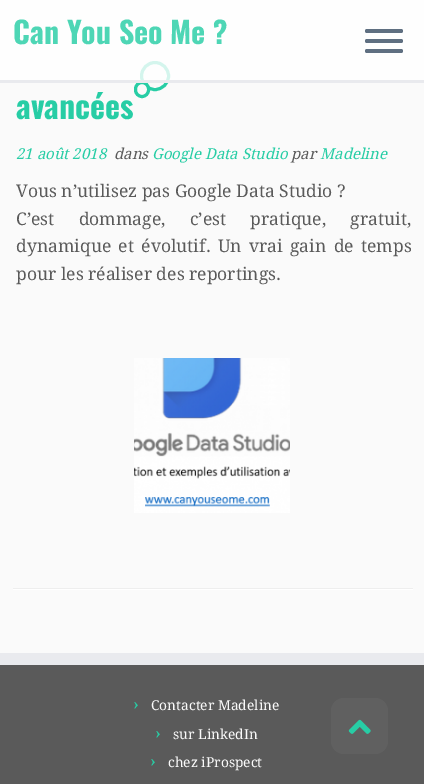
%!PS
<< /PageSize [424 784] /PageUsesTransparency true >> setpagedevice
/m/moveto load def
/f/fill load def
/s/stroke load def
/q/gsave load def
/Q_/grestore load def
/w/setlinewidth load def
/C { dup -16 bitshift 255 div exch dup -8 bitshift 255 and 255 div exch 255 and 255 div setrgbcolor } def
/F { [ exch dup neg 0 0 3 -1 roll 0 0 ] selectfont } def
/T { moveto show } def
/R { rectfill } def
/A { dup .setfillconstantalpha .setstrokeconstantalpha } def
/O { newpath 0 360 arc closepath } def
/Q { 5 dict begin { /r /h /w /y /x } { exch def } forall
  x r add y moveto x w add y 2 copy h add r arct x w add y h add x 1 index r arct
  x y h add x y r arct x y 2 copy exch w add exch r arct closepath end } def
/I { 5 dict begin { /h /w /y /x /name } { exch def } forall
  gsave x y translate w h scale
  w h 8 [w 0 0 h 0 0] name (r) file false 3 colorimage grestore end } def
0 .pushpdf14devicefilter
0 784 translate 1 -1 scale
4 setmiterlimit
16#FAFAFA C
0 0 424 784 R
16#27CDA5 C
3 w
155 76 13.5 O s
0.8 A
16#FFFFFF C
0 0 424 80 R
1 A
16#FAFAFA C
135.5 82.5 13 14 6.5 Q q f Q_
16#27CDA5 C
s
16#E9EAEE C
0 80 424 3 R
/Oswald-Bold 30 F
16#4ED6B5 C
(Can You Seo Me ?) 13 44 T
16#5F6F81 C
365 29 38 4 2 Q f
365 39 38 4 2 Q f
365 49 38 4 2 Q f
/Oswald-Bold 32 F
16#27CDA5 C
(avancées) 16 119 T
/DroidSerif-Italic 15 F
(21 août 2018) 16 159 T
16#5A5A5A C
(dans) 114 159 T
16#27CDA5 C
(Google Data Studio) 152 159 T
16#5A5A5A C
(par) 291 159 T
16#27CDA5 C
(Madeline) 320 159 T
/DroidSerif-Regular 17.5 F
16#5A5A5A C
(Vous n’utilisez pas Google Data Studio ?) 16 197 T
16 225 m 19.5 0 32 (C’est dommage, c’est pratique, gratuit,) widthshow
16 252 m 2.75 0 32 (dynamique et évolutif. Un vrai gain de temps) widthshow
(pour les réaliser des reportings.) 16 280 T
(1.rgb) 134 358 156 155 I
16#EEEEEE C
13 588 400 1 R
16#FFFFFF C
13 589 400 1 R
16#5A5A5A C
0 665 424 119 R
16#E9EAEE C
0 653 424 12 R
16#27CDA5 C
(›) 133 710 T
/DroidSerif-Regular 13.75 F
16#FAFAFA C
(Contacter Madeline) 151 710 T
/DroidSerif-Regular 17.5 F
16#27CDA5 C
(›) 155 739 T
/DroidSerif-Regular 13.75 F
16#FAFAFA C
(sur LinkedIn) 173 739 T
/DroidSerif-Regular 17.5 F
16#27CDA5 C
(›) 150 767 T
/DroidSerif-Regular 13.75 F
16#FAFAFA C
(chez iProspect) 168 767 T
16#606060 C
331 698 57 56 13 Q f
(2.rgb) 348 719 23 15 I
.poppdf14devicefilter showpage
